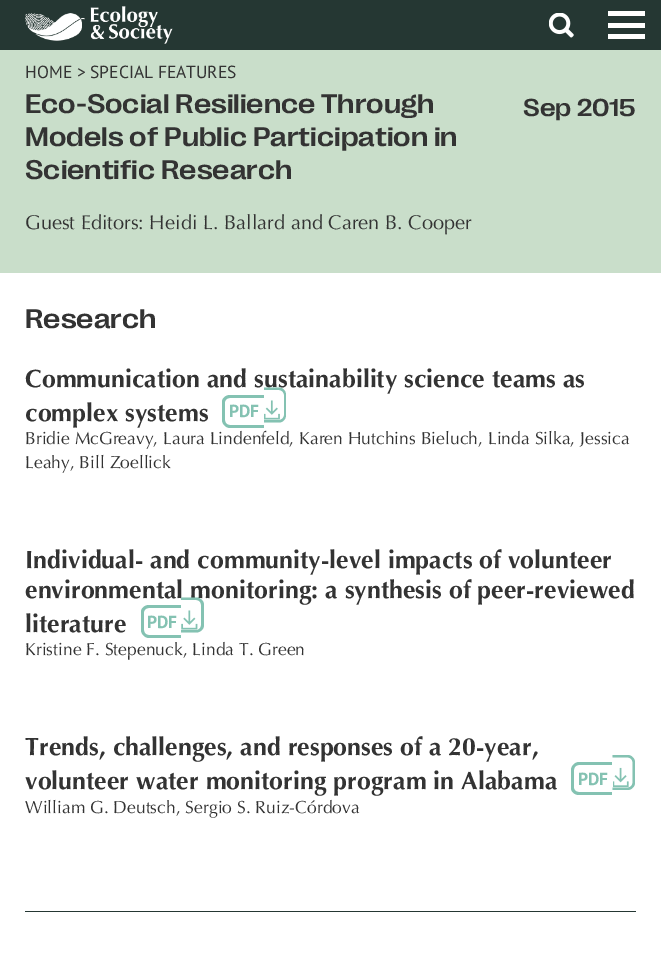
%!PS
<< /PageSize [661 960] >> setpagedevice
/m/moveto load def
/l/rlineto load def
/c/rcurveto load def
/z/closepath load def
/C { dup -16 bitshift 255 div exch dup -8 bitshift 255 and 255 div exch 255 and 255 div setrgbcolor } def
/F { [ exch dup neg 0 0 3 -1 roll 0 0 ] selectfont } def
/T { moveto show } def
/R { rectfill } def
/I { 5 dict begin { /h /w /y /x /name } { exch def } forall
  gsave x y translate w h scale
  w h 8 [w 0 0 h 0 0] name (r) file false 3 colorimage grestore end } def
0 960 translate 1 -1 scale
4 setmiterlimit
16#FFFFFF C
0 0 661 960 R
16#253733 C
0 0 661 50 R
(1.rgb) 25 6 148 38 I
(2.rgb) 549 13 25 25 I
16#FFFFFF C
608 11 37 5 R
608 23 37 5 R
608 34 37 5 R
16#C9DECA C
0 50 661 223 R
/PTSans-Regular 17.5 F
16#333333 C
(HOME > SPECIAL FEATURES) 25 78 T
/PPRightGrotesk-Medium 27.5 F
(Eco-Social Resilience Through) 25 113 T
(Models of Public Participation in) 25 146 T
(Scientific Research) 25 179 T
/PPRightGrotesk-Medium 25 F
(Sep 2015) 523 116 T
/Optima-Regular 20 F
(Guest Editors: Heidi L. Ballard and Caren B. Cooper) 25 229 T
/PPRightGrotesk-Medium 27.5 F
(Research) 25 328 T
16#253733 C
25 911 611 1 R
/Optima-Bold 25 F
16#333333 C
(Communication and sustainability science teams as) 25 387 T
(complex systems) 25 421 T
16#84C2B2 C
230 395 m 34 0 l 0 33 l -34 0 l -4 0 -8 -4 -8 -8 c 0 -18 l 0 -4 4 -7 8 -7 c z 230 398 m 34 0 l 0 27 l -34 0 l -3 0 -5 -2 -5 -5 c 0 -18 l 0 -2 2 -4 5 -4 c z eofill
/PTSans-Bold 17.5 F
(PDF) 229 417 T
264 387.5 m 15 0 l 4 0 7 3.5 7 7.5 c 0 20 l 0 4 -3 7.5 -7 7.5 c -15 0 l z 264 390 m 15 0 l 2.5 0 5 2 5 5 c 0 20 l 0 3 -2.5 5 -5 5 c -15 0 l z eofill
(3.rgb) 264 400 16 20 I
/Optima-Regular 17.5 F
16#333333 C
(Bridie McGreavy, Laura Lindenfeld, Karen Hutchins Bieluch, Linda Silka, Jessica) 25 444 T
(Leahy, Bill Zoellick) 25 468 T
/Optima-Bold 25 F
(Individual- and community-level impacts of volunteer) 25 568 T
(environmental monitoring: a synthesis of peer-reviewed) 25 598 T
(literature) 25 632 T
16#84C2B2 C
149 605 m 32 0 l 0 33 l -32 0 l -4 0 -8 -4 -8 -8 c 0 -18 l 0 -4 4 -7 8 -7 c z 149 608 m 32 0 l 0 27 l -32 0 l -3 0 -5 -2 -5 -5 c 0 -18 l 0 -2 2 -4 5 -4 c z 181 597.5 m 15 0 l 4.5 0 8 3.5 8 7.5 c 0 20 l 0 4 -3.5 7.5 -8 7.5 c -15 0 l z 181 600 m 15 0 l 3 0 5 2 5 5 c 0 20 l 0 3 -2 5 -5 5 c -15 0 l z eofill
/PTSans-Bold 17.5 F
(PDF) 147 628 T
(4.rgb) 181 610 17 20 I
/Optima-Regular 17.5 F
16#333333 C
(Kristine F. Stepenuck, Linda T. Green) 25 655 T
/Optima-Bold 25 F
(Trends, challenges, and responses of a 20-year,) 25 755 T
(volunteer water monitoring program in Alabama) 25 789 T
16#84C2B2 C
579 762 m 33 0 l 0 33 l -33 0 l -4 0 -8 -3 -8 -7 c 0 -18 l 0 -4 4 -8 8 -8 c z 579 765 m 33 0 l 0 27 l -33 0 l -3 0 -5 -2 -5 -4 c 0 -18 l 0 -3 2 -5 5 -5 c z eofill
/PTSans-Bold 17.5 F
(PDF) 578 785 T
612.5 755 m 15 0 l 4 0 7.5 3.5 7.5 7.5 c 0 20 l 0 4 -3.5 7.5 -7.5 7.5 c -15 0 l z 612.5 757.5 m 15 0 l 3 0 5 2 5 5 c 0 20 l 0 3 -2 5 -5 5 c -15 0 l z eofill
(5.rgb) 613 767 16 20 I
/Optima-Regular 17.5 F
16#333333 C
(William G. Deutsch, Sergio S. Ruiz-Córdova) 25 813 T
showpage
